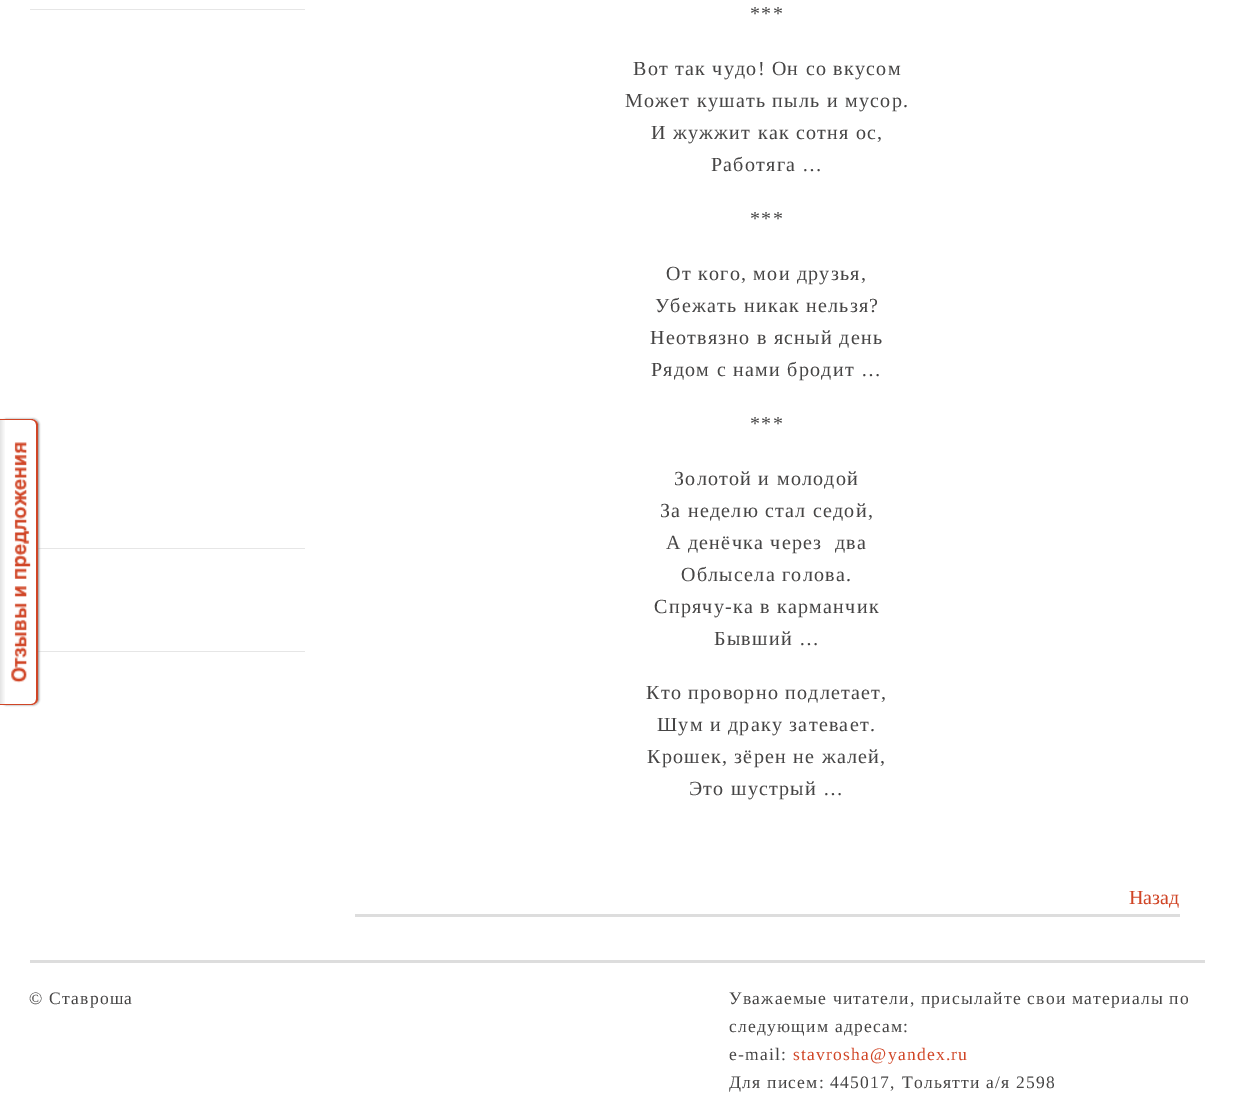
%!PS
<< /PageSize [1233 1119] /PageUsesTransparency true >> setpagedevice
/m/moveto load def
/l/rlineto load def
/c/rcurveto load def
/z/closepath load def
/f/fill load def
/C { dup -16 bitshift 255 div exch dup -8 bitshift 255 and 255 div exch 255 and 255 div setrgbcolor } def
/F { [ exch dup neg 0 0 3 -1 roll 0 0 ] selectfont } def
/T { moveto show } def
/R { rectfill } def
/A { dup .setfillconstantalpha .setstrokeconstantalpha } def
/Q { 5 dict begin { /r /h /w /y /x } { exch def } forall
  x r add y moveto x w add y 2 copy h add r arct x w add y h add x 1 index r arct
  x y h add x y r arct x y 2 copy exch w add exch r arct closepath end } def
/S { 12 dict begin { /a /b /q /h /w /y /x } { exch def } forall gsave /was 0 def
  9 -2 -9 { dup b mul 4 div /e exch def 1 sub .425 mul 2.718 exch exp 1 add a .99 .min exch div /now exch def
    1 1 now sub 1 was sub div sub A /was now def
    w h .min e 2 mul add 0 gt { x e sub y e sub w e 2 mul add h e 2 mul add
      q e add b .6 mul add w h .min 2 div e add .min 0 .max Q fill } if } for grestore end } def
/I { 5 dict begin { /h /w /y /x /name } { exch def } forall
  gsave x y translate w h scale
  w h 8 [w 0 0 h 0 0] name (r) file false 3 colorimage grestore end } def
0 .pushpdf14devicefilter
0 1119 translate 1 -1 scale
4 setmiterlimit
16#FFFFFF C
0 0 1233 1119 R
16#E6E6E6 C
30 548 275 1 R
30 651 275 1 R
16#888888 C
1 419 38 286 6 1 1 S
16#FFFFFF C
0 419 m 32 0 l 3.5 0 6 2.5 6 6 c 0 274 l 0 3.5 -2.5 6 -6 6 c -32 0 l z f
(1.rgb) 0 418 5 286 I
16#D04526 C
0 419 m 31 0 l 4 0 7 3 7 6 c 0 274 l 0 3 -3 6 -7 6 c -31 0 l z 0 420 m 31 0 l 3 0 5 2 5 5 c 0 274 l 0 3 -2 5 -5 5 c -31 0 l z eofill
(2.rgb) 11 442 20 241 I
16#E6E6E6 C
30 9 275 1 R
/LiberationSerif-Regular 20 F
16#464545 C
750 20 m 1.25 0 (***) ashow
633 75 m 1.25 0 (Вот так чудо! Он со вкусом) ashow
625 107 m 1.25 0 (Может кушать пыль и мусор.) ashow
651 139 m 1.25 0 (И жужжит как сотня ос,) ashow
711 171 m 1.25 0 (Работяга …) ashow
750 225 m 1.25 0 (***) ashow
666 280 m 1.25 0 (От кого, мои друзья,) ashow
655 312 m 1.25 0 (Убежать никак нельзя?) ashow
650 344 m 1.25 0 (Неотвязно в ясный день) ashow
651 376 m 1.25 0 (Рядом с нами бродит …) ashow
750 430 m 1.25 0 (***) ashow
674 485 m 1.25 0 (Золотой и молодой) ashow
660 517 m 1.25 0 (За неделю стал седой,) ashow
666 549 m 1.25 0 (А денёчка через  два) ashow
681 581 m 1.25 0 (Облысела голова.) ashow
654 613 m 1.25 0 (Спрячу-ка в карманчик) ashow
714 645 m 1.25 0 (Бывший …) ashow
646 699 m 1.25 0 (Кто проворно подлетает,) ashow
657 731 m 1.25 0 (Шум и драку затевает.) ashow
647 763 m 1.25 0 (Крошек, зёрен не жалей,) ashow
689 795 m 1.25 0 (Это шустрый …) ashow
16#D04526 C
(Назад) 1129 904 T
16#DDDDDD C
355 914 825 3 R
30 960 1175 3 R
/LiberationSerif-Regular 17.5 F
16#464545 C
29 1004 m 1.25 0 (© Ставроша) ashow
729 1004 m 1.25 0 (Уважаемые читатели, присылайте свои материалы по) ashow
729 1032 m 1.25 0 (следующим адресам:) ashow
729 1060 m 1.25 0 (e-mail:) ashow
16#D04526 C
793 1060 m 1.25 0 (stavrosha@yandex.ru) ashow
16#464545 C
729 1088 m 1.25 0 (Для писем: 445017, Тольятти а/я 2598) ashow
.poppdf14devicefilter showpage
